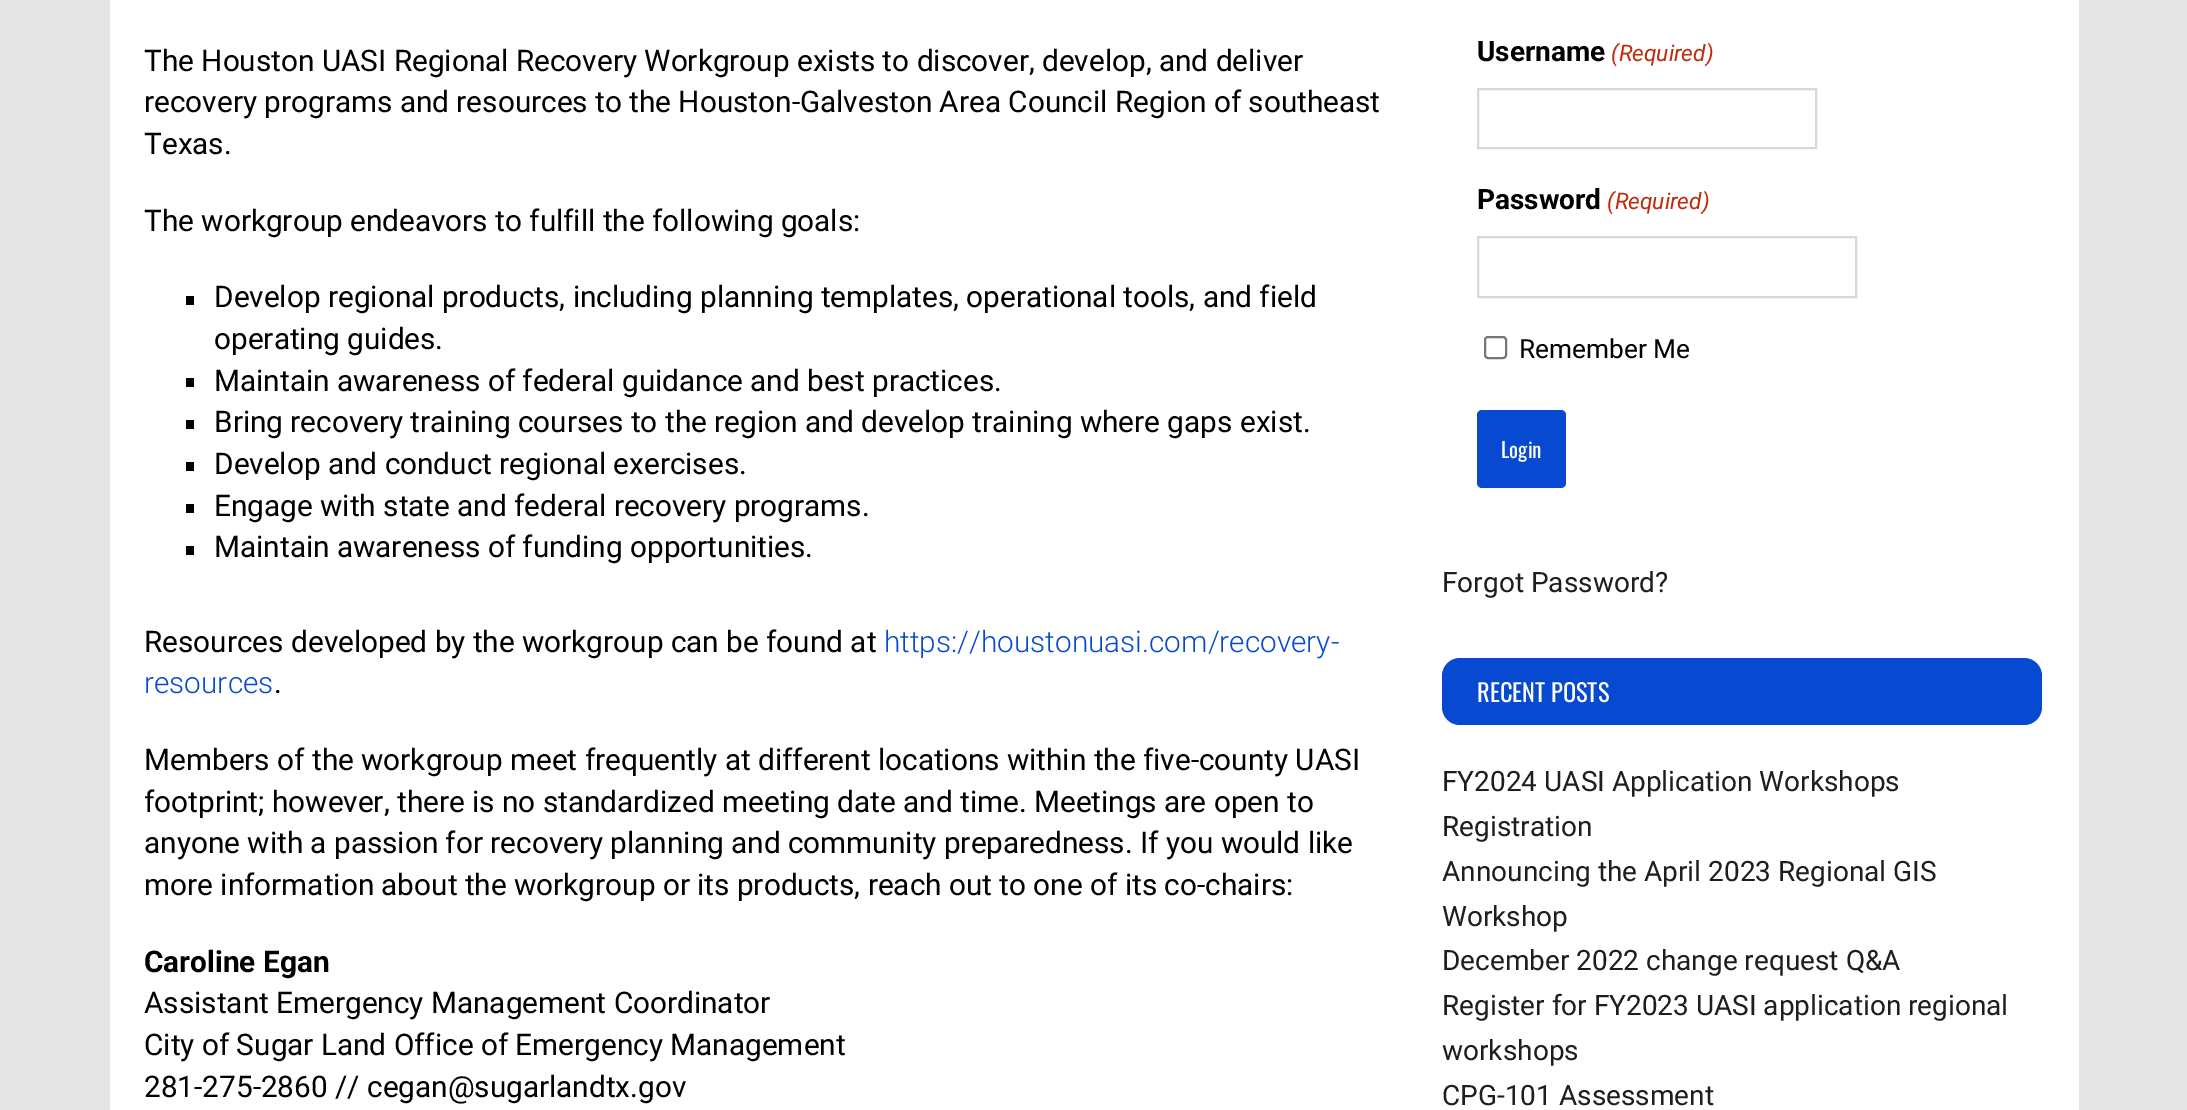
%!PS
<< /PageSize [2187 1110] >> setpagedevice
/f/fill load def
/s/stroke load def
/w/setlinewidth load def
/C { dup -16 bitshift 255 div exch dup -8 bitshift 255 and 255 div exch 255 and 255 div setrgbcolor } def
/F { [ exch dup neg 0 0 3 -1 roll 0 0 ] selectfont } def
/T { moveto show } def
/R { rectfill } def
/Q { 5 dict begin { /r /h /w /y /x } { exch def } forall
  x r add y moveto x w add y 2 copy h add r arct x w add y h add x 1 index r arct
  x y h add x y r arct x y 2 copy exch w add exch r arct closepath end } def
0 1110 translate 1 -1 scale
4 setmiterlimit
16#E5E5E5 C
0 0 2187 1110 R
16#FFFFFF C
110 0 1969 1110 R
/Roboto-Regular 29.75 F
16#000000 C
(The Houston UASI Regional Recovery Workgroup exists to discover, develop, and deliver) 144 71 T
(recovery programs and resources to the Houston-Galveston Area Council Region of southeast) 144 112 T
(Texas.) 144 154 T
(The workgroup endeavors to fulfill the following goals:) 144 231 T
186 296 8 9 R
(Develop regional products, including planning templates, operational tools, and field) 214 307 T
(operating guides.) 214 349 T
186 378 8 9 R
(Maintain awareness of federal guidance and best practices.) 214 391 T
186 420 8 9 R
(Bring recovery training courses to the region and develop training where gaps exist.) 214 432 T
186 462 8 9 R
(Develop and conduct regional exercises.) 214 474 T
186 504 8 9 R
(Engage with state and federal recovery programs.) 214 516 T
186 546 8 9 R
(Maintain awareness of funding opportunities.) 214 557 T
(Resources developed by the workgroup can be found at) 144 652 T
/Roboto-Light 29.75 F
16#0749D0 C
(https://houstonuasi.com/recovery-) 884 652 T
(resources) 144 693 T
/Roboto-Regular 29.75 F
16#000000 C
(.) 274 693 T
(Members of the workgroup meet frequently at different locations within the five-county UASI) 144 770 T
(footprint; however, there is no standardized meeting date and time. Meetings are open to) 144 812 T
(anyone with a passion for recovery planning and community preparedness. If you would like) 144 853 T
(more information about the workgroup or its products, reach out to one of its co-chairs:) 144 895 T
/Roboto-Bold 29.75 F
(Caroline Egan) 144 972 T
/Roboto-Regular 29.75 F
(Assistant Emergency Management Coordinator) 144 1013 T
(City of Sugar Land Office of Emergency Management) 144 1055 T
(281-275-2860 // cegan@sugarlandtx.gov) 144 1097 T
/Roboto-Bold 28 F
(Username) 1477 61 T
/Roboto-Italic 22.75 F
16#C02B0A C
(\(Required\)) 1611 61 T
16#D7D8D8 C
2 w
1478 89 338 59 rectstroke
/Roboto-Bold 28 F
16#000000 C
(Password) 1477 209 T
/Roboto-Italic 22.75 F
16#C02B0A C
(\(Required\)) 1607 209 T
16#D7D8D8 C
1478 237 378 60 rectstroke
16#767676 C
1485 337 21 21 3 Q s
/Roboto-Regular 26.25 F
16#000000 C
(Remember Me) 1519 358 T
16#0749D0 C
1477 410 89 78 5 Q f
/Oswald-Regular 21 F
16#FFFFFF C
(Login) 1501 458 T
/Roboto-Regular 28 F
16#1F1E1E C
(Forgot Password?) 1442 592 T
16#0749D0 C
1442 658 600 67 18 Q f
/Oswald-Regular 24.5 F
16#FFFFFF C
(RECENT POSTS) 1477 702 T
/Roboto-Regular 28 F
16#1F1E1E C
(FY2024 UASI Application Workshops) 1442 791 T
(Registration) 1442 836 T
(Announcing the April 2023 Regional GIS) 1442 881 T
(Workshop) 1442 926 T
(December 2022 change request Q&A) 1442 970 T
(Register for FY2023 UASI application regional) 1442 1015 T
(workshops) 1442 1060 T
(CPG-101 Assessment) 1442 1105 T
showpage
